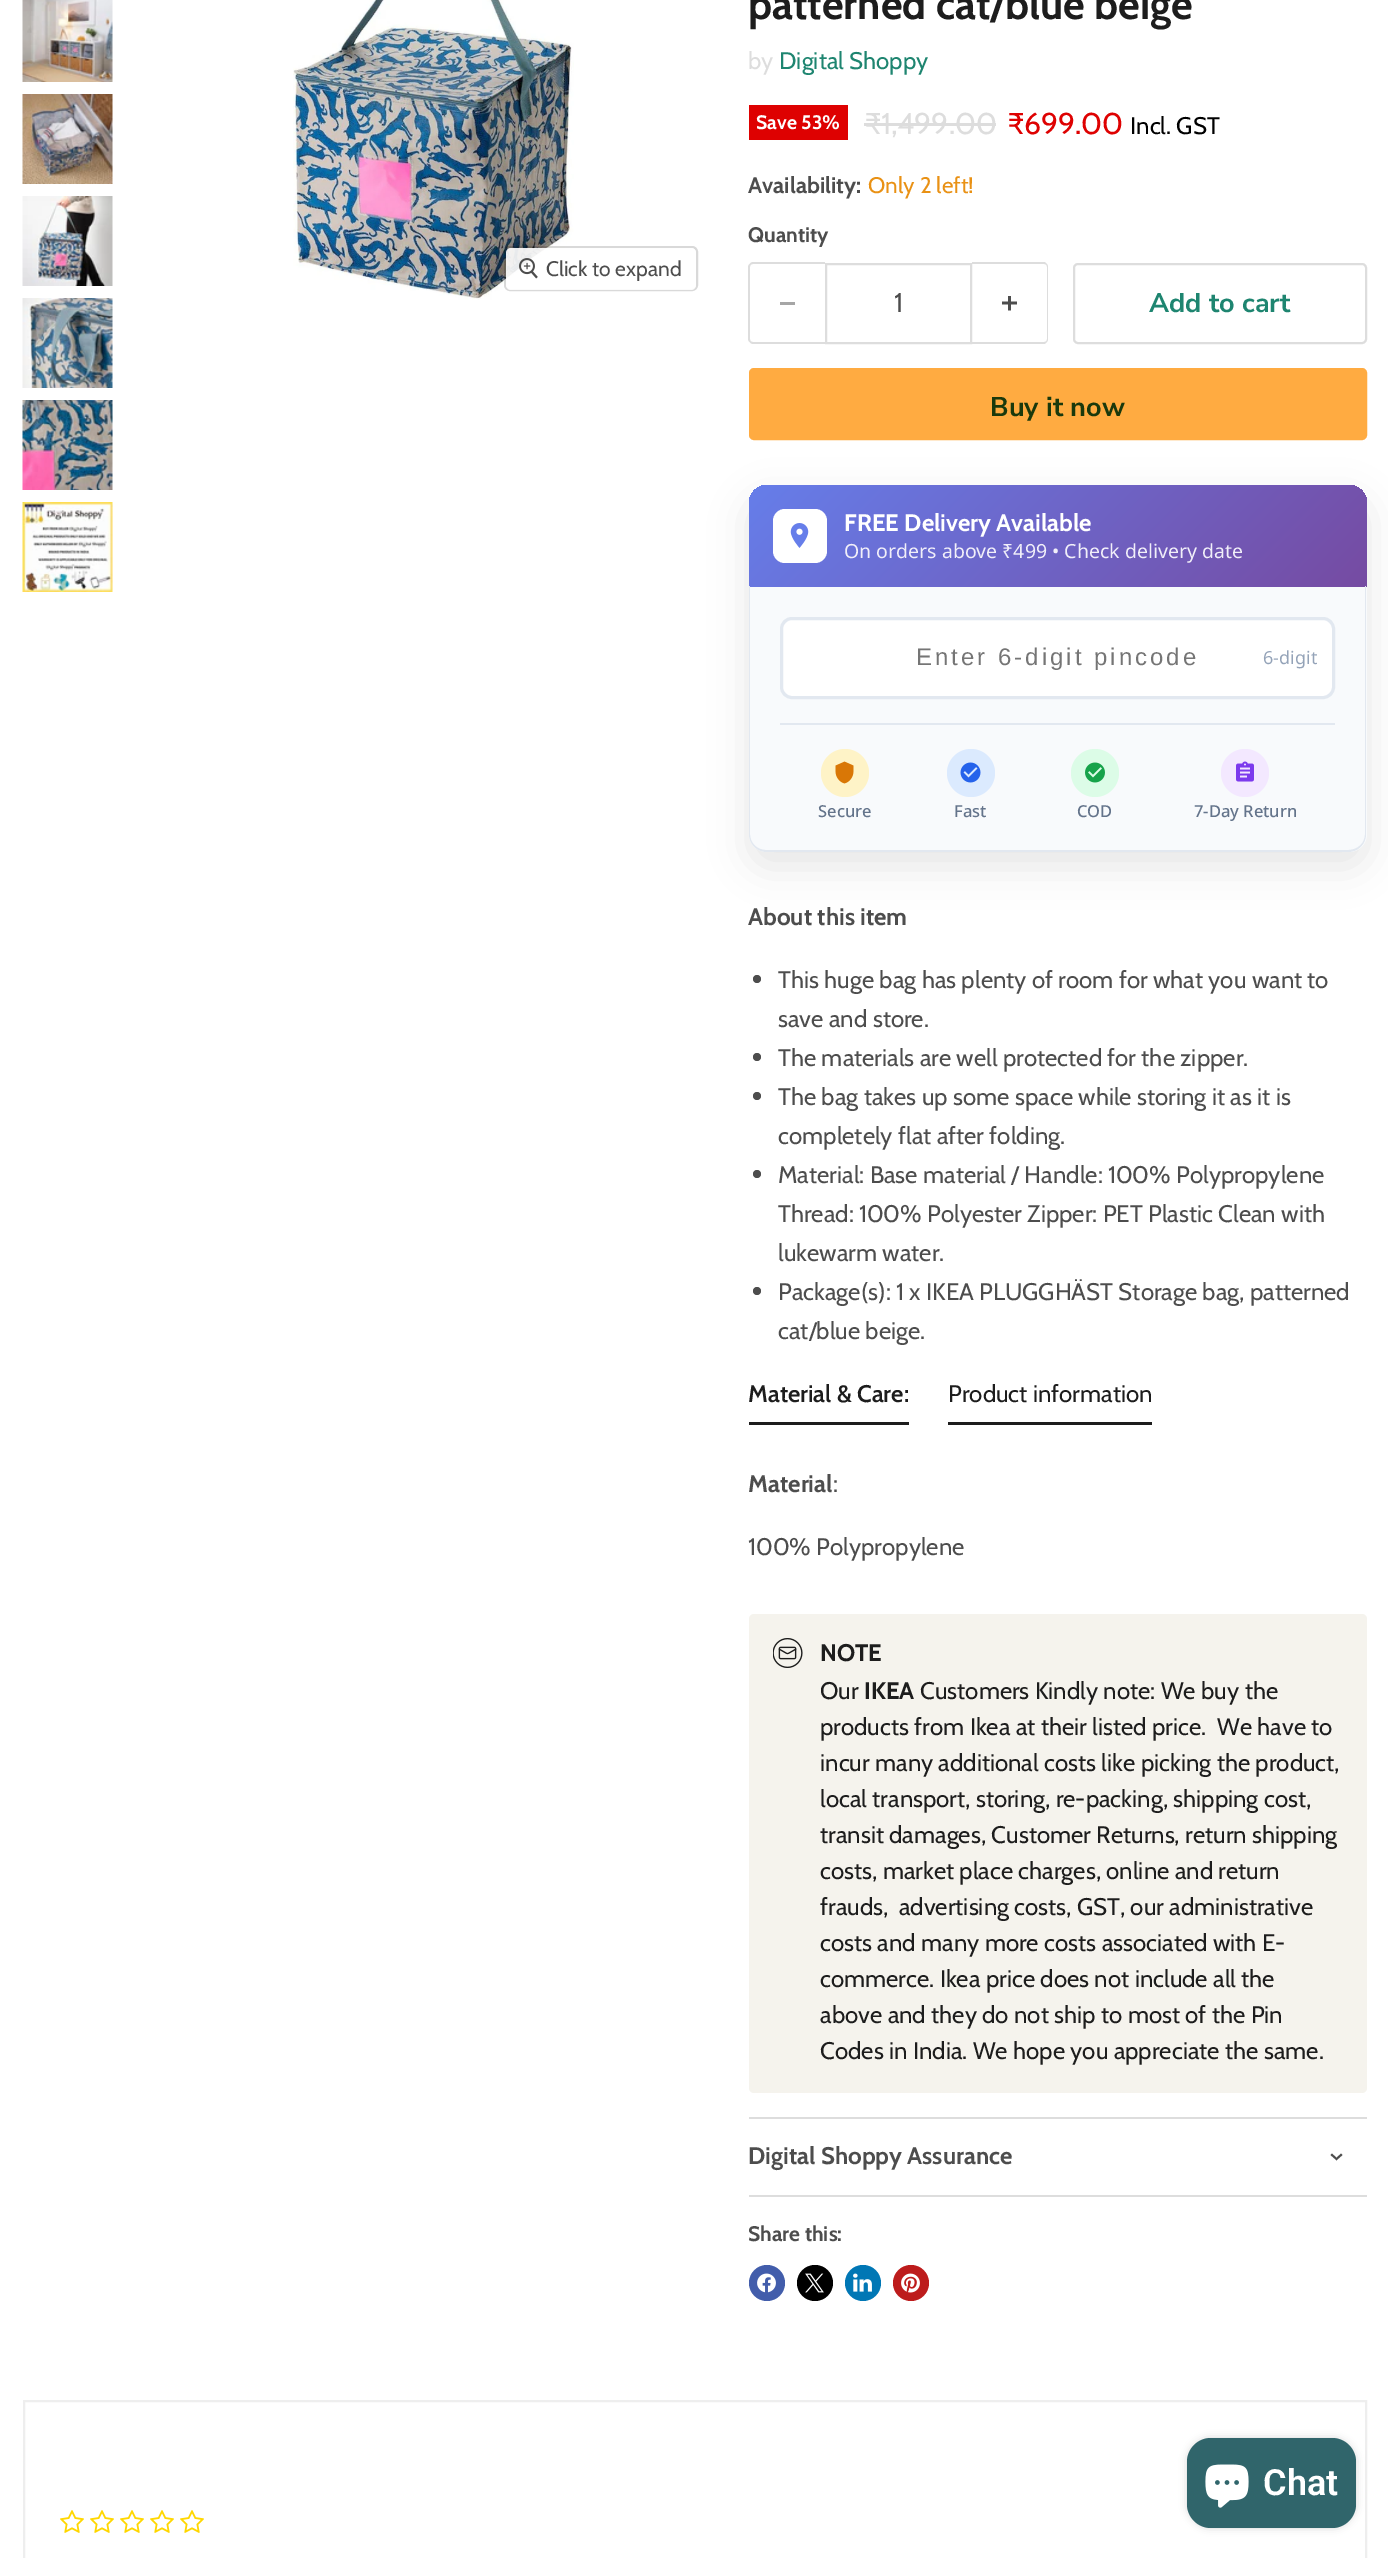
%!PS
<< /PageSize [1388 2558] /PageUsesTransparency true >> setpagedevice
/m/moveto load def
/l/rlineto load def
/c/rcurveto load def
/z/closepath load def
/f/fill load def
/s/stroke load def
/q/gsave load def
/Q_/grestore load def
/w/setlinewidth load def
/C { dup -16 bitshift 255 div exch dup -8 bitshift 255 and 255 div exch 255 and 255 div setrgbcolor } def
/F { [ exch dup neg 0 0 3 -1 roll 0 0 ] selectfont } def
/T { moveto show } def
/R { rectfill } def
/A { dup .setfillconstantalpha .setstrokeconstantalpha } def
/O { newpath 0 360 arc closepath } def
/Q { 5 dict begin { /r /h /w /y /x } { exch def } forall
  x r add y moveto x w add y 2 copy h add r arct x w add y h add x 1 index r arct
  x y h add x y r arct x y 2 copy exch w add exch r arct closepath end } def
/S { 12 dict begin { /a /b /q /h /w /y /x } { exch def } forall gsave /was 0 def
  9 -2 -9 { dup b mul 4 div /e exch def 1 sub .425 mul 2.718 exch exp 1 add a .99 .min exch div /now exch def
    1 1 now sub 1 was sub div sub A /was now def
    w h .min e 2 mul add 0 gt { x e sub y e sub w e 2 mul add h e 2 mul add
      q e add b .6 mul add w h .min 2 div e add .min 0 .max Q fill } if } for grestore end } def
/I { 5 dict begin { /h /w /y /x /name } { exch def } forall
  gsave x y translate w h scale
  w h 8 [w 0 0 h 0 0] name (r) file false 3 colorimage grestore end } def
0 .pushpdf14devicefilter
0 2558 translate 1 -1 scale
4 setmiterlimit
16#FFFFFF C
0 0 1388 2558 R
(1.rgb) 22 0 91 82 I
(2.rgb) 22 94 91 90 I
(3.rgb) 22 196 91 90 I
(4.rgb) 22 298 91 90 I
(5.rgb) 22 400 91 90 I
(6.rgb) 22 502 91 90 I
(7.rgb) 293 0 281 300 I
0.15 A
16#000000 C
2 w
505 247 192 43 5 Q s
0.9 A
16#FFFFFF C
506 248 190 42 5 Q f
1 A
(8.rgb) 519 258 19 21 I
/Cabin-Regular 21 F
16#4D4D4D C
(Click to expand) 546 276 T
/Cabin-Bold 42 F
16#1D1D1D C
(patterned cat/blue beige) 748 19 T
/Cabin-Regular 24 F
16#DDDDDD C
(by) 748 69 T
16#1E8570 C
(Digital Shoppy) 779 69 T
16#DE0101 C
749 105 99 35 R
/Cabin-Bold 19.5 F
16#FFFFFF C
(Save 53%) 756 129 T
/Cabin-Regular 30 F
16#DDDDDD C
(₹1,499.00) 865 134 T
864 123 132 3 R
16#DE0101 C
(₹699.00) 1008 134 T
/Cabin-Regular 24 F
16#000000 C
(Incl. GST) 1130 134 T
/Cabin-Bold 22.5 F
16#4D4D4D C
(Availability:) 748 193 T
/Cabin-Regular 22.5 F
16#E99114 C
(Only 2 left!) 868 193 T
/Cabin-Bold 21 F
16#4D4D4D C
(Quantity) 748 242 T
16#DDDDDD C
753 262 m 72 0 l 0 82 l -72 0 l -2 0 -5 -3 -5 -5 c 0 -72 l 0 -2 3 -5 5 -5 c z 753 264 m 72 0 l 0 78 l -72 0 l -2 0 -3 -1 -3 -3 c 0 -72 l 0 -2 1 -3 3 -3 c z eofill
16#A6A6A6 C
780 302 15 3 R
16#DDDDDD C
826 264 145 79 rectstroke
/Cabin-Regular 27 F
16#4D4D4D C
(1) 894 312 T
16#DDDDDD C
972 262 m 72 0 l 2 0 4 3 4 5 c 0 72 l 0 2 -2 5 -4 5 c -72 0 l z 972 264 m 72 0 l 2 0 3 1 3 3 c 0 72 l 0 2 -1 3 -3 3 c -72 0 l z eofill
(9.rgb) 1002 296 15 15 I
1074 264 292 79 4 Q s
/NunitoSans-Bold 27 F
16#1E8570 C
(Add to cart) 1149 312 T
16#FFAB41 C
750 369 616 70 4 Q q f Q_
s
16#1A390C C
(Buy it now) 990 416 T
16#000000 C
749 500 618 367 18 19 .1 S
q 767 485 m 582 0 l 10 0 18 8 18 18 c 0 84 l -618 0 l 0 -84 l 0 -10 8 -18 18 -18 c z clip newpath
<< /ShadingType 2 /ColorSpace /DeviceRGB /Coords [878 356 1238 716] /Extend [true true] /Function << /FunctionType 2 /Domain [0 1] /C0 [.4 .494 .918] /C1 [.463 .294 .635] /N 1 >> >> shfill Q_
16#FFFFFF C
773 509 54 54 12 Q f
(10.rgb) 790 523 19 25 I
/Cabin-Bold 24 F
(FREE Delivery Available) 844 531 T
/NotoSans-Regular 19.5 F
16#F1EFF9 C
(On orders above ₹499 • Check delivery date) 844 558 T
16#F8FAFC C
749 587 m 618 0 l 0 247 l 0 10 -8 18 -18 18 c -582 0 l -10 0 -18 -8 -18 -18 c z f
16#E2E8F0 C
750 586 m -1 0 l 0 248 l 0 10 8 18 18 18 c 581 0 l 10 0 18 -8 18 -18 c 0 -248 l -1 0 l 0 248 l 0 9 -7 16 -17 16 c -582 0 l -9 0 -16 -7 -16 -16 c z f
16#FFFFFF C
781.5 618.5 552 79 10.5 Q q f Q_
16#E2E8F0 C
3 w
s
/LiberationSans-Regular 24 F
16#757575 C
916 665 m 3 0 (Enter 6-digit pincode) ashow
/NotoSans-Regular 18 F
16#94A3B8 C
(6-digit) 1263 664 T
16#E2E8F0 C
780 723 555 2 R
16#FEF3C7 C
845 773 24 O f
(11.rgb) 835 761 19 23 I
/NotoSans-Medium 16.5 F
16#64748B C
(Secure) 818 817 T
16#DBEAFE C
971 773 24 O f
(12.rgb) 960 762 21 21 I
16#64748B C
(Fast) 954 817 T
16#DCFCE7 C
1095 773 24 O f
(13.rgb) 1085 762 20 21 I
16#64748B C
(COD) 1077 817 T
16#F3E8FF C
1245 773 24 O f
(14.rgb) 1236 761 18 21 I
16#64748B C
(7-Day Return) 1194 817 T
/Cabin-Bold 24 F
16#4D4D4D C
(About this item) 748 925 T
757 979 4 O f
/Cabin-Regular 24 F
(This huge bag has plenty of room for what you want to) 778 988 T
(save and store.) 778 1027 T
757 1057 4 O f
(The materials are well protected for the zipper.) 778 1066 T
757 1096 4 O f
(The bag takes up some space while storing it as it is) 778 1105 T
(completely flat after folding.) 778 1144 T
757 1174 4 O f
(Material: Base material / Handle: 100% Polypropylene) 778 1183 T
(Thread: 100% Polyester Zipper: PET Plastic Clean with) 778 1222 T
(lukewarm water.) 778 1261 T
757 1291 4 O f
(Package\(s\): 1 x IKEA PLUGGHÄST Storage bag, patterned) 778 1300 T
(cat/blue beige.) 778 1339 T
16#1D1D1D C
749 1422 160 3 R
/Cabin-SemiBold 24 F
(Material & Care:) 748 1402 T
948 1422 204 3 R
/Cabin-Regular 24 F
(Product information) 948 1402 T
/Cabin-Bold 24 F
16#4D4D4D C
(Material) 748 1492 T
/Cabin-Regular 24 F
(:) 833 1492 T
(100% Polypropylene) 748 1555 T
16#F5F3ED C
749 1614 618 479 5 Q f
(15.rgb) 773 1638 30 30 I
/Cabin-Bold 24 F
16#1D1D1D C
(NOTE) 820 1661 T
/Cabin-Regular 24 F
(Our) 820 1699 T
/Cabin-Bold 24 F
(IKEA) 864 1699 T
/Cabin-Regular 24 F
(Customers Kindly note: We buy the) 920 1699 T
(products from Ikea at their listed price.  We have to) 820 1735 T
(incur many additional costs like picking the product,) 820 1771 T
(local transport, storing, re-packing, shipping cost,) 820 1807 T
(transit damages, Customer Returns, return shipping) 820 1843 T
(costs, market place charges, online and return) 820 1879 T
(frauds,  advertising costs, GST, our administrative) 820 1915 T
(costs and many more costs associated with E-) 820 1951 T
(commerce. Ikea price does not include all the) 820 1987 T
(above and they do not ship to most of the Pin) 820 2023 T
(Codes in India. We hope you appreciate the same.) 820 2059 T
16#DDDDDD C
749 2117 618 2 R
749 2195 618 2 R
/Cabin-Bold 24 F
16#4D4D4D C
(Digital Shoppy Assurance) 748 2164 T
1.9 w
2 setlinecap
1336.5 2159 m 4.5 -4 l 1336.5 2159 m -4.5 -4 l s
/Cabin-Bold 21 F
(Share this:) 748 2241 T
16#425DAB C
767 2283 18 O f
(16.rgb) 757 2273 19 20 I
16#000000 C
815 2283 18 O f
(17.rgb) 805 2273 19 20 I
16#0077B5 C
863 2283 18 O f
(18.rgb) 853 2273 19 19 I
16#BD1C1C C
911 2283 18 O f
(19.rgb) 901 2273 19 20 I
16#EEEEEE C
2 w
0 setlinecap
24 2401 1342 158 rectstroke
(20.rgb) 60 2510 24 23 I
(20.rgb) 90 2510 24 23 I
(20.rgb) 120 2510 24 23 I
(20.rgb) 150 2510 24 23 I
(20.rgb) 180 2510 24 23 I
16#000000 C
1187 2438 169 90 24 4 .15 S
16#30656B C
1187 2438 169 90 24 Q f
(21.rgb) 1205 2464 44 44 I
/Roboto-SemiBold 36 F
16#FFFFFF C
(Chat) 1263 2495 T
.poppdf14devicefilter showpage
